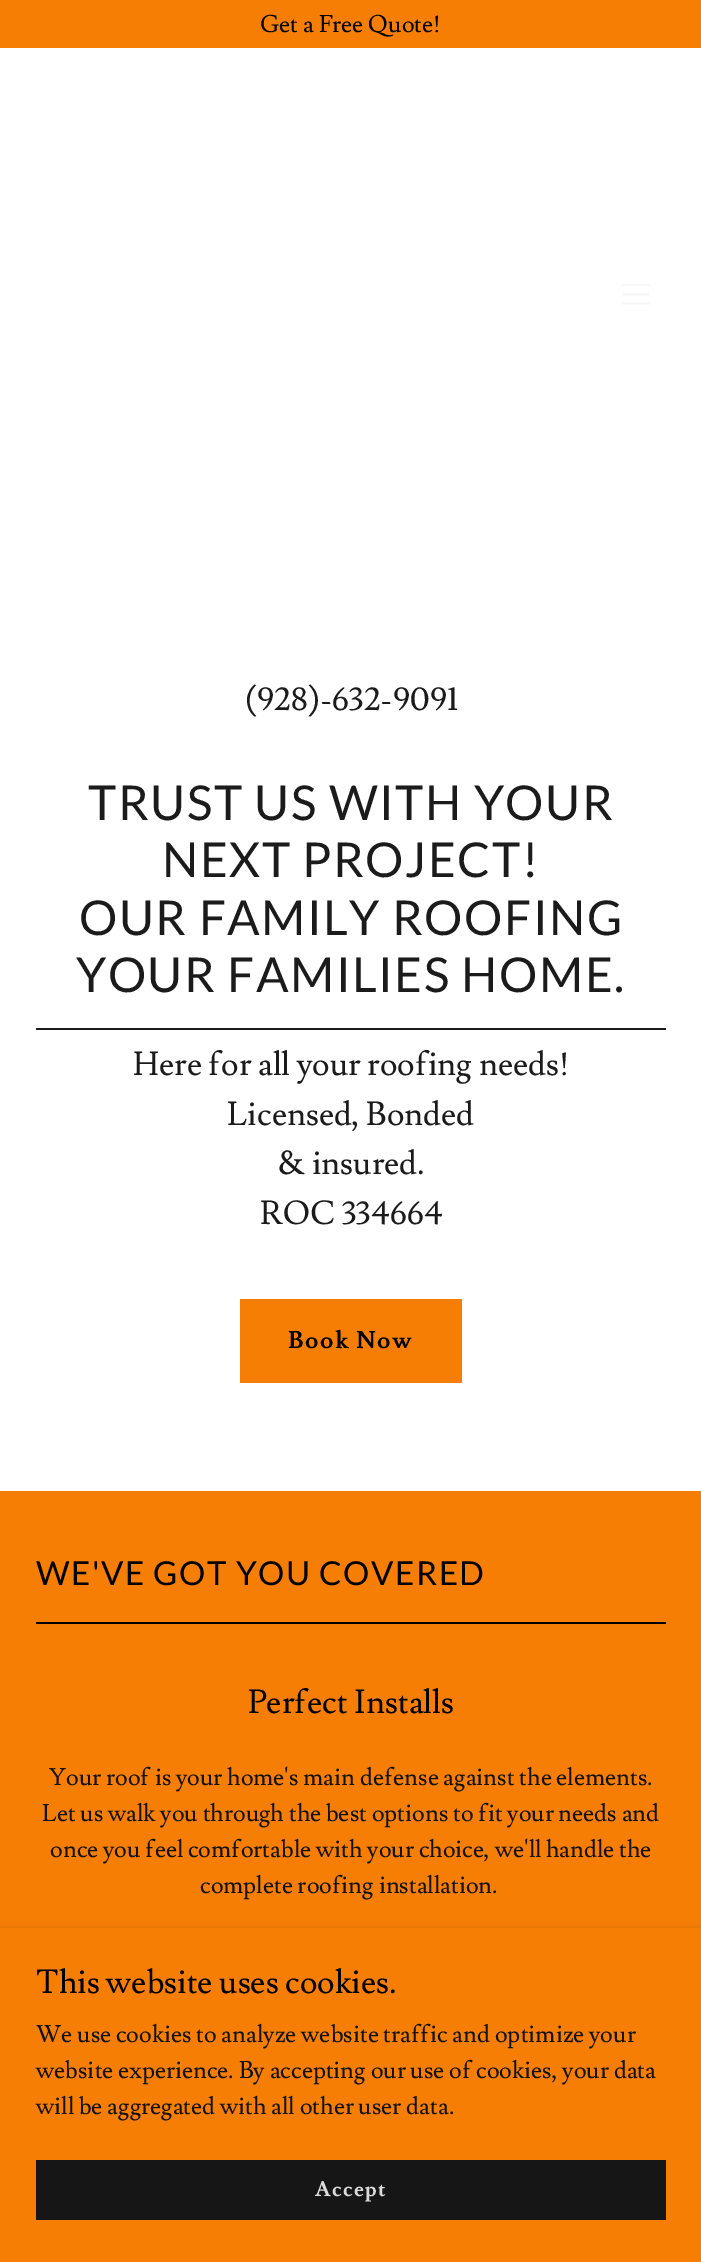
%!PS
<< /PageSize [701 2262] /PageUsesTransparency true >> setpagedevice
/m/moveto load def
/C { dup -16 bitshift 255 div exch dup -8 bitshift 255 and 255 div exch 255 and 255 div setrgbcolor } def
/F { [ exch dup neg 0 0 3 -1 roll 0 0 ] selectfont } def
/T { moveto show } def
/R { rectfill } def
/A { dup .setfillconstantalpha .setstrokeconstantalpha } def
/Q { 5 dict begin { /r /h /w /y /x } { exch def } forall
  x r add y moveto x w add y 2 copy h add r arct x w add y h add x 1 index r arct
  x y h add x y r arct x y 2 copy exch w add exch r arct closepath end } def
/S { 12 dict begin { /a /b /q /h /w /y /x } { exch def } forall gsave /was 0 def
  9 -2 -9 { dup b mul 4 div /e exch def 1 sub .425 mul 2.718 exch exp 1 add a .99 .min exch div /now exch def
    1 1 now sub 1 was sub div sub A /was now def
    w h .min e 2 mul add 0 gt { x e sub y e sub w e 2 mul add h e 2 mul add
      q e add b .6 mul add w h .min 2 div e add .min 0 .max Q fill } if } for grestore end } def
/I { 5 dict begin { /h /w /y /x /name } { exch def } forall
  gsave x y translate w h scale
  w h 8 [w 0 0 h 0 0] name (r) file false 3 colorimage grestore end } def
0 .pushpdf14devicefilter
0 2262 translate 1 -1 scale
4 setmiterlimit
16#FFFFFF C
0 0 701 2262 R
16#F77E05 C
0 0 701 48 R
/Lusitana-Regular 24 F
16#000000 C
(Get a Free Quote!) 260 32 T
(1.rgb) 622 284 28 21 I
/Lusitana-Regular 33 F
16#1B1B1B C
(\(928\)-632-9091) 245 710 T
36 1028 630 2 R
/Lato-Regular 48 F
88 820 m 1.5 0 (TRUST US WITH YOUR) ashow
162 877 m 1.5 0 (NEXT PROJECT!) ashow
79 935 m 1.5 0 (OUR FAMILY ROOFING) ashow
76 992 m 1.5 0 (YOUR FAMILIES HOME.) ashow
/Lusitana-Regular 33 F
(Here for all your roofing needs!) 133 1075 T
(Licensed, Bonded) 227 1125 T
(& insured.) 278 1174 T
(ROC 334664) 260 1224 T
16#F77E05 C
240 1299 222 84 R
/Lusitana-Bold 24 F
16#000000 C
288 1348 m 1.5 0 (Book Now) ashow
16#F77E05 C
0 1491 701 437 R
/Lato-Regular 33 F
16#000000 C
36 1585 m 1.5 0 (WE'VE GOT YOU COVERED) ashow
36 1622 630 2 R
/Lusitana-Regular 33 F
(Perfect Installs) 248 1713 T
/Lusitana-Regular 24 F
16#141211 C
(Your roof is your home's main defense against the elements.) 49 1785 T
(Let us walk you through the best options to fit your needs and) 42 1821 T
(once you feel comfortable with your choice, we'll handle the) 50 1857 T
(complete roofing installation.) 200 1893 T
16#000000 C
0 1931 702 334 0 4.5 .3 S
16#F77E05 C
0 1928 701 334 R
/Lusitana-Regular 33 F
16#000000 C
(This website uses cookies.) 36 1993 T
/Lusitana-Regular 24 F
16#141211 C
(We use cookies to analyze website traffic and optimize your) 36 2042 T
(website experience. By accepting our use of cookies, your data) 36 2078 T
(will be aggregated with all other user data.) 36 2114 T
16#161616 C
36 2160 630 60 R
/Lusitana-Bold 21 F
16#DBDBDB C
315 2196 m 1.25 0 (Accept) ashow
.poppdf14devicefilter showpage
